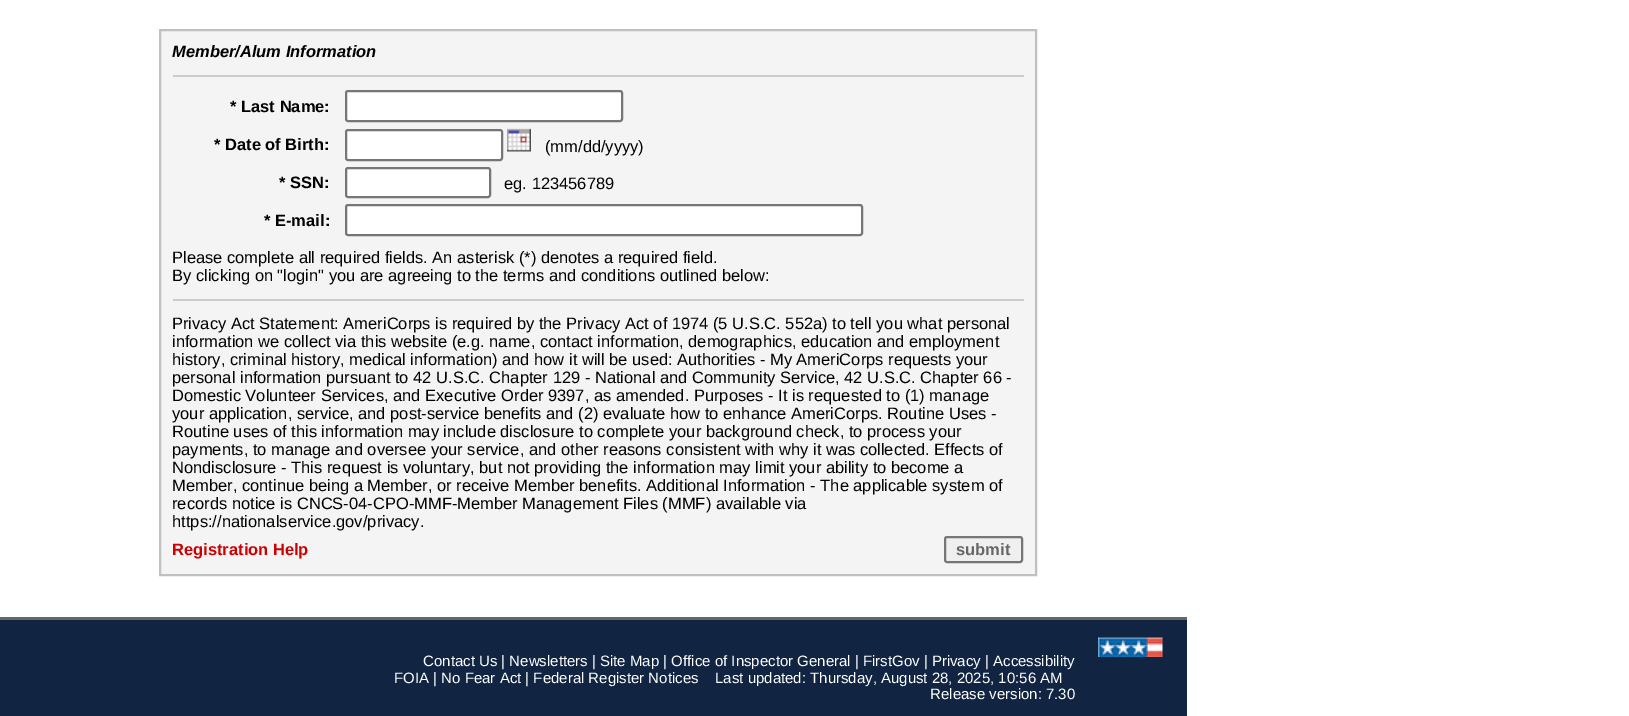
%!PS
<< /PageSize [1629 716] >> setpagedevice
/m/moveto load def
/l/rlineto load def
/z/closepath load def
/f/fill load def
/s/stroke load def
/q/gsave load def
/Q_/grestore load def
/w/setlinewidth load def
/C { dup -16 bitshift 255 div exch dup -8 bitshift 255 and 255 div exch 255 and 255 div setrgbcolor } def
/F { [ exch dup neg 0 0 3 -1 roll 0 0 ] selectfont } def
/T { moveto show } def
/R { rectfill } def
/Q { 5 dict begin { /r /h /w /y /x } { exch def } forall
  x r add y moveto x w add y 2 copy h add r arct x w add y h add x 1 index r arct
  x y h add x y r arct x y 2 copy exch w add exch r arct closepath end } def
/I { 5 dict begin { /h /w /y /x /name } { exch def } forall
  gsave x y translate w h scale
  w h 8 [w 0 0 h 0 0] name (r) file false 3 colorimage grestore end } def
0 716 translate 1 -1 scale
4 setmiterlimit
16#FFFFFF C
0 0 1629 716 R
16#F4F4F4 C
160 30 m 876 0 l 0 545 l -876 0 l z q f Q_
16#C0C0C0 C
2 w
s
/LiberationSans-BoldItalic 16.5 F
16#000000 C
(Member/Alum Information) 172 57 T
16#CCCCCC C
173 75 851 2 R
/LiberationSans-Bold 16.5 F
16#000000 C
(* Last Name:) 230 112 T
16#FFFFFF C
346 91 276 30 2 Q q f Q_
16#767676 C
s
16#000000 C
(* Date of Birth:) 214 150 T
16#FFFFFF C
346 130 156 30 2 Q q f Q_
16#767676 C
s
(1.rgb) 507 128 24 24 I
/LiberationSans-Regular 16.5 F
16#000000 C
(\(mm/dd/yyyy\)) 545 152 T
/LiberationSans-Bold 16.5 F
(* SSN:) 279 188 T
16#FFFFFF C
346 168 144 29 2 Q q f Q_
16#767676 C
s
/LiberationSans-Regular 16.5 F
16#000000 C
(eg. 123456789) 504 189 T
/LiberationSans-Bold 16.5 F
(* E-mail:) 264 226 T
16#FFFFFF C
346 205 516 30 2 Q q f Q_
16#767676 C
s
/LiberationSans-Regular 16.5 F
16#000000 C
(Please complete all required fields. An asterisk \(*\) denotes a required field.) 172 263 T
(By clicking on "login" you are agreeing to the terms and conditions outlined below:) 172 281 T
16#CCCCCC C
173 299 851 2 R
16#000000 C
(Privacy Act Statement: AmeriCorps is required by the Privacy Act of 1974 \(5 U.S.C. 552a\) to tell you what personal) 172 329 T
(information we collect via this website \(e.g. name, contact information, demographics, education and employment) 172 347 T
(history, criminal history, medical information\) and how it will be used: Authorities - My AmeriCorps requests your) 172 365 T
(personal information pursuant to 42 U.S.C. Chapter 129 - National and Community Service, 42 U.S.C. Chapter 66 -) 172 383 T
(Domestic Volunteer Services, and Executive Order 9397, as amended. Purposes - It is requested to \(1\) manage) 172 401 T
(your application, service, and post-service benefits and \(2\) evaluate how to enhance AmeriCorps. Routine Uses -) 172 419 T
(Routine uses of this information may include disclosure to complete your background check, to process your) 172 437 T
(payments, to manage and oversee your service, and other reasons consistent with why it was collected. Effects of) 172 455 T
(Nondisclosure - This request is voluntary, but not providing the information may limit your ability to become a) 172 473 T
(Member, continue being a Member, or receive Member benefits. Additional Information - The applicable system of) 172 491 T
(records notice is CNCS-04-CPO-MMF-Member Management Files \(MMF\) available via) 172 509 T
(https://nationalservice.gov/privacy.) 172 527 T
/LiberationSans-Bold 16.5 F
16#CC0000 C
(Registration Help) 172 555 T
16#EFEFEF C
945 537 77 25 2 Q q f Q_
16#767676 C
s
16#666666 C
(submit) 956 555 T
16#112542 C
0 620 1187 96 R
16#666666 C
0 617 1187 3 R
(2.rgb) 1098 637 65 20 I
/LiberationSans-Regular 15 F
16#FFFFFF C
(Contact Us | Newsletters | Site Map | Office of Inspector General | FirstGov | Privacy | Accessibility) 423 666 T
(FOIA | No Fear Act | Federal Register Notices) 394 683 T
(Last updated: Thursday, August 28, 2025, 10:56 AM) 715 683 T
(Release version: 7.30) 930 699 T
showpage
